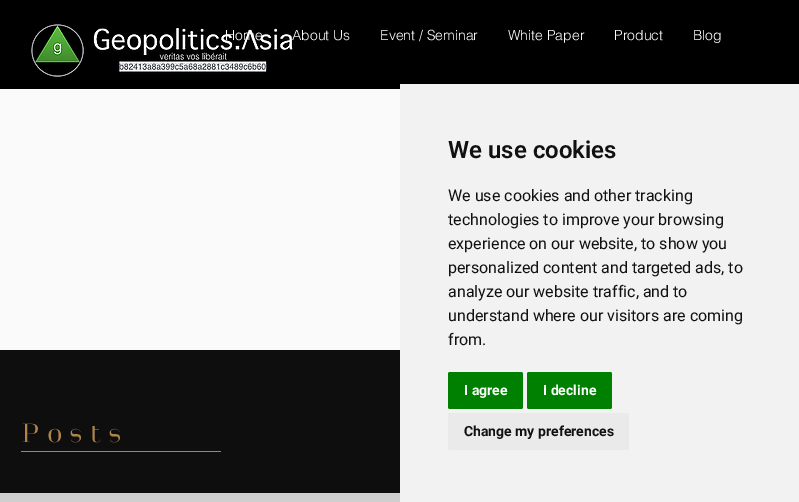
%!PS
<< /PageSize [799 502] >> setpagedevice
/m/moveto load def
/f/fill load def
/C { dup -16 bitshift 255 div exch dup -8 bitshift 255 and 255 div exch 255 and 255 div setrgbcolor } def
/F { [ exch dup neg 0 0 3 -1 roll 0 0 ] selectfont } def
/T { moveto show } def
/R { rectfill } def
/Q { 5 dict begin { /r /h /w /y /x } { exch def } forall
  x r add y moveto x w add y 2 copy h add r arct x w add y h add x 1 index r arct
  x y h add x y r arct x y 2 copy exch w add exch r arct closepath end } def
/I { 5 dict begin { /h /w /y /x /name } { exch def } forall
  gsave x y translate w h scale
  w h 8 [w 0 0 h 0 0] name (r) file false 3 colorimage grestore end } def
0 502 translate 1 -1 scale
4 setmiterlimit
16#0E0E0E C
0 0 799 502 R
16#000000 C
0 0 799 89 R
(1.rgb) 31 24 262 53 I
/helvetica-Light 14 F
16#FFFFFF C
(Home) 225 40 T
(About Us) 292 40 T
(Event / Seminar) 380 40 T
(White Paper) 508 40 T
(Product) 614 40 T
(Blog) 693 40 T
16#FAFAFA C
0 89 400 261 R
/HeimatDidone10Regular-Regular 28 F
16#AD844C C
21 442 m 7 0 (Posts) ashow
21 451 200 1 R
16#CFCFCF C
0 493 400 9 R
16#F2F2F2 C
400 84 399 418 R
/Roboto-SemiBold 24 F
16#111111 C
(We use cookies) 448 158 T
/Roboto-Regular 16 F
(We use cookies and other tracking) 448 201 T
(technologies to improve your browsing) 448 225 T
(experience on our website, to show you) 448 249 T
(personalized content and targeted ads, to) 448 273 T
(analyze our website traffic, and to) 448 297 T
(understand where our visitors are coming) 448 321 T
(from.) 448 345 T
16#008000 C
448 372 75 37 2 Q f
/Roboto-Bold 14 F
16#FFFFFF C
(I agree) 464 395 T
16#008000 C
527 372 85 37 2 Q f
16#FFFFFF C
(I decline) 543 395 T
16#EAEAEA C
448 413 181 37 2 Q f
16#111111 C
(Change my preferences) 464 436 T
showpage
